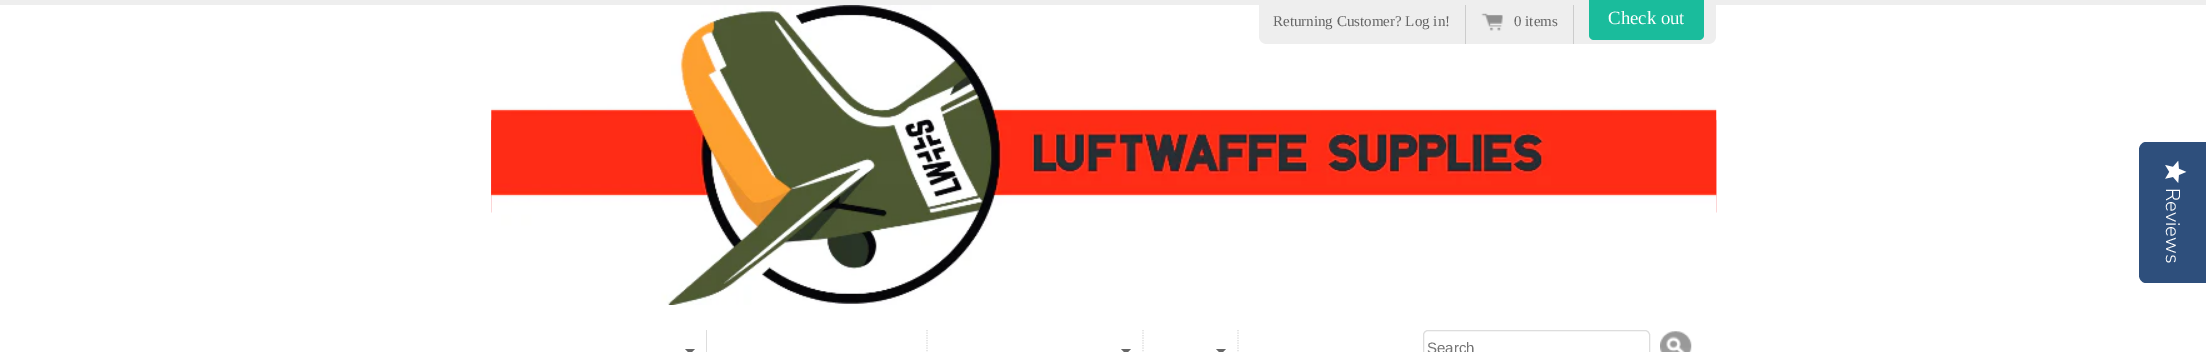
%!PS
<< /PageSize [2206 352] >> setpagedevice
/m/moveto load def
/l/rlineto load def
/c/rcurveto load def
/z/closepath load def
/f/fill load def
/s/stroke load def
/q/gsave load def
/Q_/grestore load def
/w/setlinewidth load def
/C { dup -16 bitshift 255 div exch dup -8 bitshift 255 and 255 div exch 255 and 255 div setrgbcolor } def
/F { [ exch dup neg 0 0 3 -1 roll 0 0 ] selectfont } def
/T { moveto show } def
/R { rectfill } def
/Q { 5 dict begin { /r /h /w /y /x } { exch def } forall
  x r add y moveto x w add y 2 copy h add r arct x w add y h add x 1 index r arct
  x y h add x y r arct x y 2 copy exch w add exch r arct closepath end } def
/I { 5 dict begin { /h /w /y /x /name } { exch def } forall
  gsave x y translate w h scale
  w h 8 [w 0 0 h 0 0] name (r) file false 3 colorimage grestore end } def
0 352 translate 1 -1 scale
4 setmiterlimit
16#FFFFFF C
0 0 2206 352 R
16#EEEEEE C
0 0 2206 5 R
(1.rgb) 491 119 1226 94 I
(2.rgb) 491 5 1226 300 I
1259 5 m 457 0 l 0 31 l 0 4.5 -3.5 8 -8 8 c -441 0 l -4.5 0 -8 -3.5 -8 -8 c z f
16#CCCCCC C
1465 5 1 39 R
/LiberationSerif-Regular 15 F
16#666666 C
(Returning Customer? Log in!) 1273 26 T
16#CCCCCC C
1573 5 1 39 R
(3.rgb) 1481 13 22 18 I
16#666666 C
(0 items) 1514 26 T
16#1ABC9C C
1589 -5 115 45 5 Q f
/LiberationSerif-Regular 18.75 F
16#FFFFFF C
(Check out) 1608 24 T
16#DDDDDD C
706 330 1 22 R
16#666666 C
685 349 m 10 0 l -5 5 l z f
16#DDDDDD C
1.2 w
[1.25 1.25] 0 setdash
927 330 m 0 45 l s
1143 330 m 0 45 l s
16#666666 C
1121 349 m 10 0 l -5 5 l z f
16#DDDDDD C
1238 330 m 0 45 l s
16#666666 C
1216 349 m 10 0 l -5 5 l z f
16#DDDDDD C
1 w
[] 0 setdash
1423.5 330.5 226 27 4.5 Q s
/LiberationSans-Regular 15 F
16#757575 C
(Search) 1427 353 T
(4.rgb) 1660 331 32 21 I
16#2E4F7C C
2206 142 m 0 141 l -60 0 l -4 0 -7 -4 -7 -8 c 0 -125 l 0 -4 3 -8 7 -8 c z f
(5.rgb) 2165 160 22 23 I
/NunitoSans-Light 20 F
16#FFFFFF C
q 2166 188 translate 90 rotate 0 0 m (Reviews) show Q_
showpage
